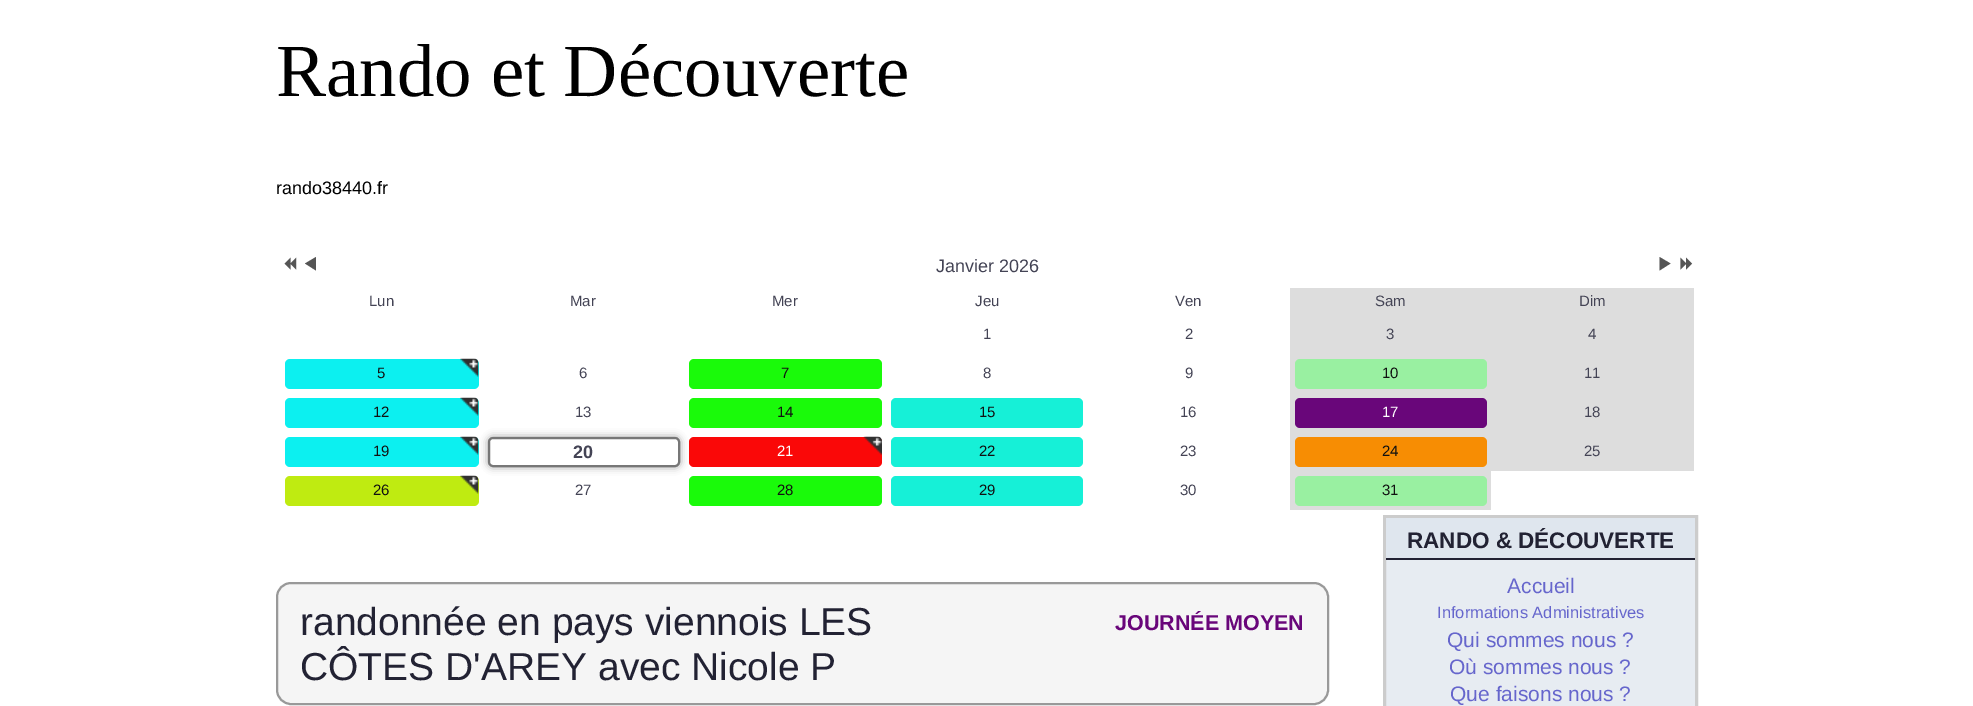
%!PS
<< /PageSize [1973 706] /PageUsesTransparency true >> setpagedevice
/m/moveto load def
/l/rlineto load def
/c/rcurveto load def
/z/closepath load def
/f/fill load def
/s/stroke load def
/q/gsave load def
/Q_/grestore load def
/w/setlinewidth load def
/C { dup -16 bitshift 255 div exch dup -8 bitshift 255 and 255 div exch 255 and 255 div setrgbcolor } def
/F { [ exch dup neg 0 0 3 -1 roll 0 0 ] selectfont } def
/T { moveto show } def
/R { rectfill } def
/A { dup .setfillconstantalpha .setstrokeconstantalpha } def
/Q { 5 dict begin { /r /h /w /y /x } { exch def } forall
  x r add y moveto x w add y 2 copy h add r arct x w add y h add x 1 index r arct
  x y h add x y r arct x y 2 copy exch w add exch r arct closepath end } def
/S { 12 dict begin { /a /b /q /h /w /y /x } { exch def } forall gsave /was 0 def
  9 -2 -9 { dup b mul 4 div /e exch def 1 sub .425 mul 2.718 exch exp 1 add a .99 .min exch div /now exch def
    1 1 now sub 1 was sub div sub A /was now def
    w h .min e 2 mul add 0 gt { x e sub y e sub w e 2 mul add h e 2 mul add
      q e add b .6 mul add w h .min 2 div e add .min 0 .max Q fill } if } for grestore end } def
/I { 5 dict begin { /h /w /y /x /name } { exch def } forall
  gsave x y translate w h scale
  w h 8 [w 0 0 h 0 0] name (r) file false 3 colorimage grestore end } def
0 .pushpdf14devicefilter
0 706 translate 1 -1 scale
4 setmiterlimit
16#FFFFFF C
0 0 1973 706 R
/LiberationSerif-Regular 75 F
16#000000 C
(Rando et Découverte) 276 96 T
/LiberationSans-Regular 18 F
(rando38440.fr) 276 194 T
(1.rgb) 284 257 13 13 I
16#555555 C
316 270.5 m -11 -7 l 11 -6.5 l z f
16#444455 C
(Janvier 2026) 936 272 T
16#555555 C
1659.5 257 m 11 6.5 l -11 7 l z f
(2.rgb) 1680 257 13 13 I
/LiberationSans-Regular 15 F
16#444455 C
(Lun) 369 306 T
(Mar) 570 306 T
(Mer) 772 306 T
(Jeu) 975 306 T
(Ven) 1175 306 T
16#DDDDDD C
1290 288 404 27 R
16#444455 C
(Sam) 1375 306 T
(Dim) 1579 306 T
(1) 983 339 T
(2) 1185 339 T
16#DDDDDD C
1290 315 404 39 R
16#444455 C
(3) 1386 339 T
(4) 1588 339 T
16#0CF0F0 C
285 359 194 30 5 Q f
(3.rgb) 460 358 19 19 I
16#111111 C
(5) 377 378 T
16#444455 C
(6) 579 378 T
16#1AFA0A C
689 359 193 30 5 Q f
16#111111 C
(7) 781 378 T
16#444455 C
(8) 983 378 T
(9) 1185 378 T
16#DDDDDD C
1290 354 404 39 R
16#99F0A1 C
1295 359 192 30 5 Q f
16#111111 C
(10) 1382 378 T
16#444455 C
(11) 1584 378 T
16#0CF0F0 C
285 398 194 30 5 Q f
(3.rgb) 460 397 19 19 I
16#111111 C
(12) 373 417 T
16#444455 C
(13) 575 417 T
16#1AFA0A C
689 398 193 30 5 Q f
16#111111 C
(14) 777 417 T
16#16F0D7 C
891 398 192 30 5 Q f
16#111111 C
(15) 979 417 T
16#444455 C
(16) 1180 417 T
16#DDDDDD C
1290 393 404 39 R
16#69067A C
1295 398 192 30 5 Q f
16#FFFFFF C
(17) 1382 417 T
16#444455 C
(18) 1584 417 T
16#0CF0F0 C
285 437 194 30 5 Q f
(3.rgb) 460 436 19 19 I
16#111111 C
(19) 373 456 T
q
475 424 m 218 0 l 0 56 l -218 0 l z 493 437 m 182 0 l 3 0 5 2 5 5 c 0 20 l 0 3 -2 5 -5 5 c -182 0 l -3 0 -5 -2 -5 -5 c 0 -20 l 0 -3 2 -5 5 -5 c z eoclip newpath
16#999999 C
488 437 192 30 5 4 1 S
Q_
16#777777 C
2 w
489 438 190 28 4 Q s
/LiberationSans-Bold 18 F
16#444455 C
(20) 573 458 T
16#FA0808 C
689 437 193 30 5 Q f
(4.rgb) 863 436 19 19 I
/LiberationSans-Regular 15 F
16#FFFFFF C
(21) 777 456 T
16#16F0D7 C
891 437 192 30 5 Q f
16#111111 C
(22) 979 456 T
16#444455 C
(23) 1180 456 T
16#DDDDDD C
1290 432 404 39 R
16#F78D03 C
1295 437 192 30 5 Q f
16#111111 C
(24) 1382 456 T
16#444455 C
(25) 1584 456 T
16#BFEB11 C
285 476 194 30 5 Q f
(5.rgb) 460 475 19 19 I
16#111111 C
(26) 373 495 T
16#444455 C
(27) 575 495 T
16#1AFA0A C
689 476 193 30 5 Q f
16#111111 C
(28) 777 495 T
16#16F0D7 C
891 476 192 30 5 Q f
16#111111 C
(29) 979 495 T
16#444455 C
(30) 1180 495 T
16#DDDDDD C
1290 471 201 39 R
16#99F0A1 C
1295 476 192 30 5 Q f
16#111111 C
(31) 1382 495 T
16#F5F5F5 C
277 583 1051 121 14 Q q f Q_
16#999999 C
s
/LiberationSans-Regular 39 F
16#222233 C
(randonnée en pays viennois LES) 300 635 T
(CÔTES D'AREY avec Nicole P) 300 680 T
/LiberationSans-Bold 21.5 F
16#69067A C
(JOURNÉE MOYEN) 1115 630 T
16#E7ECF2 C
1386 560 309 146 R
16#CCCCCC C
3 w
1384.5 516.5 312 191 rectstroke
16#DFE6EE C
1386 518 309 40 R
16#222233 C
1386 558 309 2 R
/LiberationSans-Bold 22.5 F
(RANDO & DÉCOUVERTE) 1407 548 T
/LiberationSans-Regular 21 F
16#6666CC C
(Accueil) 1507 593 T
/LiberationSans-Regular 16.5 F
(Informations Administratives) 1437 618 T
/LiberationSans-Regular 21 F
(Qui sommes nous ?) 1447 647 T
(Où sommes nous ?) 1449 674 T
(Que faisons nous ?) 1450 701 T
.poppdf14devicefilter showpage
